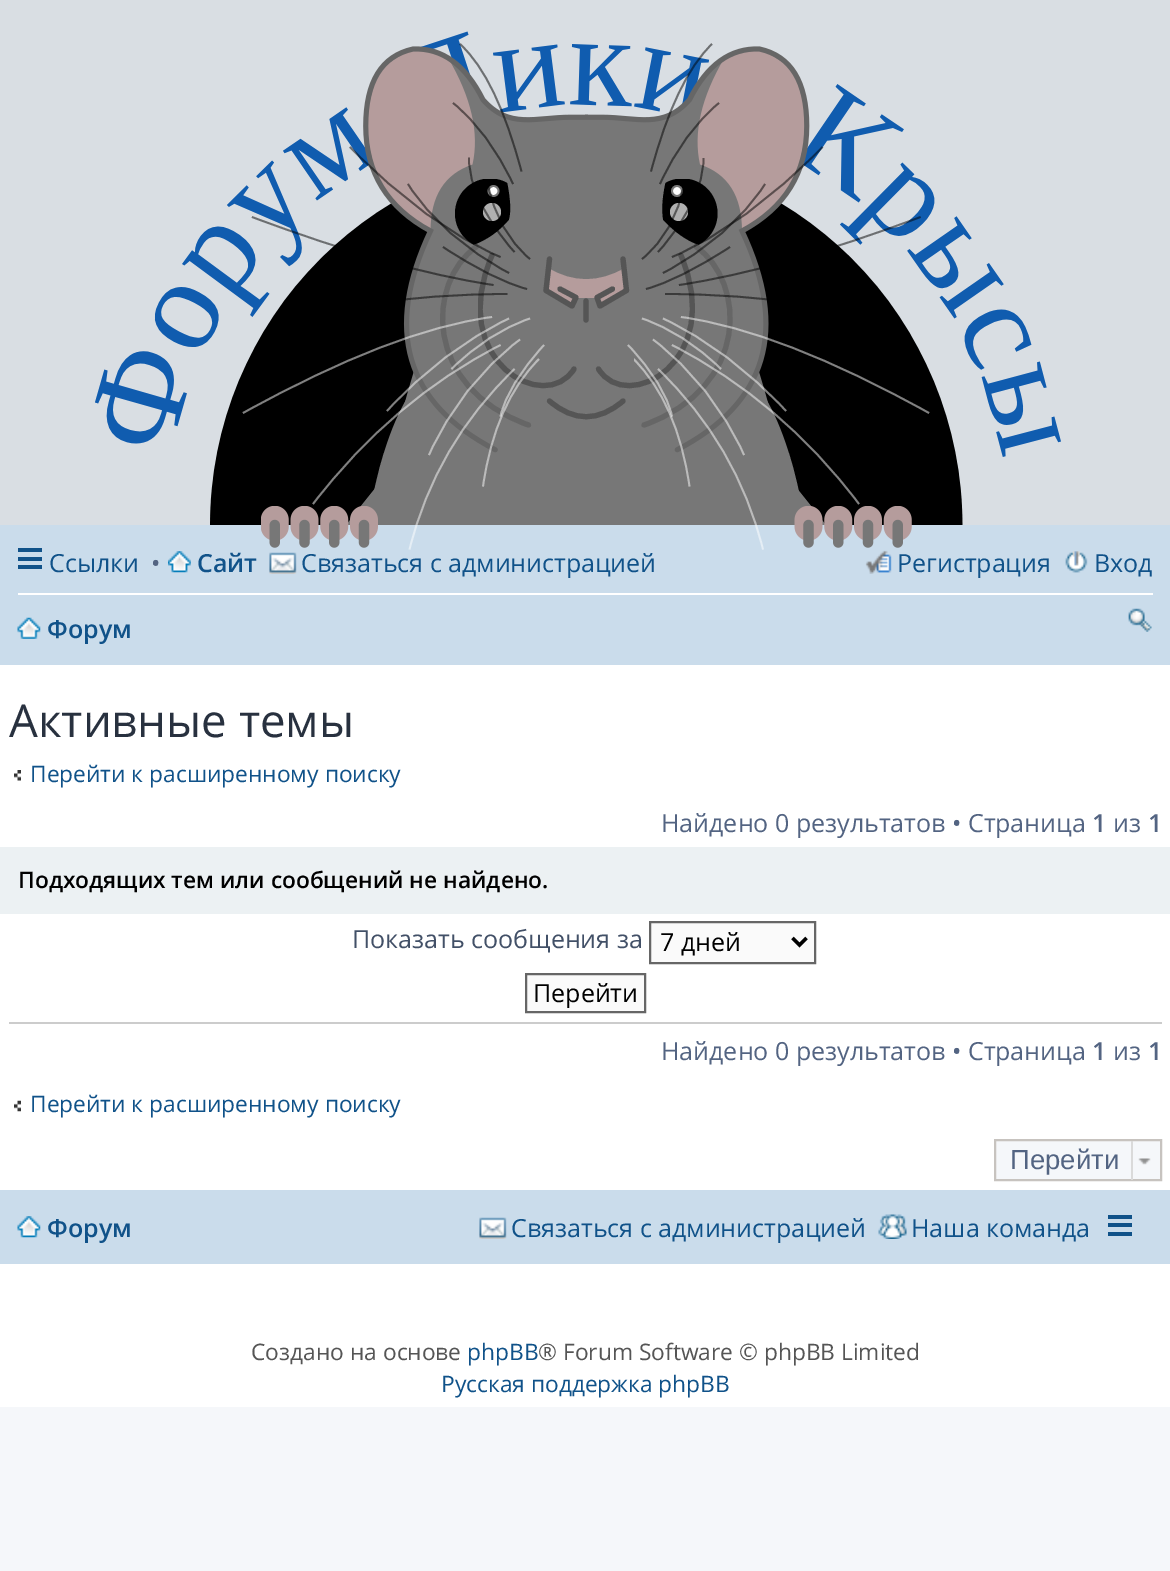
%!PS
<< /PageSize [1170 1571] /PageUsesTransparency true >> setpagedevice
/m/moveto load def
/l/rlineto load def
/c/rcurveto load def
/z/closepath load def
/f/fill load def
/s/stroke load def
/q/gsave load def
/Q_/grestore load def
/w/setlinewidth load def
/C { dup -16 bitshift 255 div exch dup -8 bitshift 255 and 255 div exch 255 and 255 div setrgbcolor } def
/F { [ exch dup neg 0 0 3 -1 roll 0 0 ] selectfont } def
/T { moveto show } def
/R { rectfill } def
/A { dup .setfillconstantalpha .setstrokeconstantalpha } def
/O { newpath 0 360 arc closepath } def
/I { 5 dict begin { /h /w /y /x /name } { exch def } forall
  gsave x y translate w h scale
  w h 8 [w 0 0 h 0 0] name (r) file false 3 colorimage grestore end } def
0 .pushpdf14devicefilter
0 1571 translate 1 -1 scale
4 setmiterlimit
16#F5F7FA C
0 0 1170 1571 R
16#D9DEE3 C
0 0 1170 525 R
(1.rgb) 95 31 966 494 I
16#777777 C
346 525 m 76 -97 156 -188 240 -273 c 84 85 164 176 240 273 c z f
368 525 m 34 -227 157 -227 192 0 c f
612 525 m 36 -227 158 -227 193 0 c f
385 488 m 87 -446 315 -446 403 0 c f
(2.rgb) 363 46 225 407 I
(3.rgb) 585 46 225 407 I
q
455 179 70 70 rectclip
16#000000 C
490 213.5 35 O f
Q_
16#FFFFFF C
493.5 191 5 O q f Q_
16#777777 C
1.8 w
s
16#B0B0B0 C
492 212 9 O f
16#777777 C
588 439 m -9 0 l -157 -17 -157 -157 -105 -194 c 13 -5 25 -13 35 -25 c 3 -10 1 -25 -3 -45 c 13 -22 40 -33 82 -33 c z f
0.5 A
16#000000 C
521.5 171.5 m -16.5 -62 -36.5 -104.5 -61.5 -127.5 c s
513 184 m -16.5 -35 -36.5 -62 -60 -81 c s
q
648 179 70 70 rectclip
1 A
682.5 213.5 35 O f
Q_
1 A
16#FFFFFF C
677 191 5 O q f Q_
16#777777 C
s
16#B0B0B0 C
679 212 9 O f
q
585 142 148 297 rectclip
16#777777 C
584 439 m 9 0 l 158 -17 158 -157 105 -194 c -13 -5 -24 -13 -35 -25 c -2 -10 -1 -25 4 -45 c -13 -22 -41 -33 -83 -33 c z f
Q_
0.5 A
16#000000 C
651 171.5 m 16.5 -62 37 -104.5 61 -127.5 c s
660 184 m 16 -35 36 -62 59 -81 c s
1 A
16#666666 C
5.2 w
1 setlinecap
528.5 425 m -106.5 -38 -101.5 -143 -52.5 -178 c s
644 425 m 107 -38 101.5 -143 52.5 -178 c s
q
478 161 108 228 rectclip
16#555555 C
574 369 m -28 46 -128 -7 -82 -113.5 c s
Q_
0.5 A
16#000000 C
1.8 w
0 setlinecap
500.5 257 m -49 -21 -99 -57.5 -150.5 -110 c s
493.5 285 m -67.5 -10 -148 -33 -241.5 -68 c s
16#FFFFFF C
492 317 m -67 9 -149.5 41 -249 96 c s
500.5 345 m -72.5 37 -134.5 90 -187.5 159 c s
1 A
16#CADCEB C
0 525 1170 140 R
(4.rgb) 261 506 651 42 I
0.5 A
16#FFFFFF C
514.5 369 m -52.5 50.5 -87.5 110.5 -105 180.5 c s
q
586 161 109 228 rectclip
1 A
16#555555 C
5.2 w
1 setlinecap
598.5 369 m 28 46 127.5 -7 82.5 -113.5 c s
Q_
16#000000 C
672 257 m 49 -21 99 -57.5 150.5 -110 c s
679 285 m 67.5 -10 148 -33 241.5 -68 c s
16#FFFFFF C
681 317 m 66 9 149 41 248 96 c s
672 345 m 72.5 37 135 90 187 159 c s
658 369 m 52.5 50.5 87.5 110.5 105 180.5 c s
16#000000 C
514.5 252 m -30.5 -34 -45.5 -65.5 -45.5 -94.5 c s
509 273 m -44 -23.5 -78 -53 -101 -89 c s
507.5 294 m -49 0 -97 3.5 -143.5 10.5 c s
16#FFFFFF C
509 318.5 m -44 21 -85 52 -122 92.5 c s
520 339.5 m -40 30.5 -70 69 -91 115.5 c s
539 359 m -29 29 -48 71.5 -56 127.5 c s
q
634 158 175 329 rectclip
16#000000 C
658 252 m 30.5 -34 45.5 -65.5 45.5 -94.5 c s
Q_
16#000000 C
663 273 m 44.5 -23.5 78.5 -53 102 -89 c s
665 294 m 49 0 97 3.5 143.5 10.5 c s
16#FFFFFF C
663 318.5 m 44.5 21 85.5 52 123 92.5 c s
653 339.5 m 39.5 30.5 70 69 91 115.5 c s
q
634 158 175 329 rectclip
633.5 359 m 29 29 48 71.5 56 127.5 c s
Q_
16#000000 C
530 259 m -22 -18.5 -36 -44 -42 -75 c s
527 289 m -22.5 -6 -50.5 -20 -84 -42 c s
16#FFFFFF C
530 318.5 m -28 9.5 -54 26.5 -78.5 50.5 c s
544 345 m -24 26.5 -39 50.5 -43.5 71.5 c s
16#000000 C
642 259 m 22.5 -18.5 36.5 -44 42 -75 c s
646 289 m 22 -6 50 -20 84 -42 c s
16#FFFFFF C
642 318.5 m 28 9.5 54.5 26.5 79 50.5 c s
628 345 m 25 26.5 39.5 50.5 44 71.5 c s
1 A
16#B59C9C C
546 290 m 26 16 l 4 -8 l 21 0 l 3 8 l 26 -16 l -1 -22 l -26 15 -52 15 -77 0 c z f
16#555555 C
5.2 w
1 setlinecap
586 320 m 0 -19 l s
1 setlinejoin
549.5 259 m -3.5 31.5 l 26 15.5 l 4 -8.5 l -16 -8.5 l s
623 259 m 3.5 31.5 l -26.5 15.5 l -3 -8.5 l 15.5 -8.5 l s
0 setlinejoin
549.5 401 m 24.5 21 49 21 73.5 0 c s
16#FFFFFF C
0 665 1170 742 R
16#105289 C
18 548 24 4 R
18 557 24 4 R
18 565 24 4 R
/OpenSans-Regular 25 F
(Ссылки) 49 572 T
16#536482 C
(•) 151 572 T
(5.rgb) 168 551 23 22 I
/OpenSans-SemiBold 25 F
16#105289 C
(Сайт) 197 572 T
(6.rgb) 269 552 28 22 I
/OpenSans-Regular 25 F
(Связаться с администрацией) 301 572 T
(7.rgb) 865 550 27 24 I
(Регистрация) 897 572 T
(8.rgb) 1065 551 23 22 I
(Вход) 1094 572 T
16#FFFFFF C
18 593 1135 2 R
(9.rgb) 17 617 24 22 I
/OpenSans-SemiBold 25 F
16#105289 C
(Форум) 47 638 T
(10.rgb) 1128 608 24 24 I
/OpenSans-Regular 45.5 F
16#28313F C
(Активные темы) 9 737 T
(11.rgb) 14 770 7 11 I
/OpenSans-Regular 22.75 F
16#105289 C
(Перейти к расширенному поиску) 30 782 T
/OpenSans-Regular 25 F
16#536482 C
(Найдено 0 результатов • Страница) 661 832 T
/OpenSans-SemiBold 25 F
(1) 1092 832 T
/OpenSans-Regular 25 F
(из) 1113 832 T
/OpenSans-SemiBold 25 F
(1) 1148 832 T
16#ECF1F3 C
0 847 1170 67 R
/OpenSans-SemiBold 22.75 F
16#000000 C
(Подходящих тем или сообщений не найдено.) 18 888 T
/OpenSans-Regular 25 F
16#425067 C
(Показать сообщения за) 352 948 T
16#FAFAFA C
650 922 m 165 0 l 0 41 l -165 0 l z q f Q_
16#666666 C
2 w
0 setlinecap
s
16#000000 C
3.5 w
792.5 938 m 7 7 l 7 -7 l s
(7 дней) 660 951 T
16#FAFAFA C
526 974 m 119 0 l 0 38 l -119 0 l z q f Q_
16#666666 C
2 w
s
16#000000 C
(Перейти) 533 1002 T
16#CCCCCC C
9 1022 1153 2 R
16#536482 C
(Найдено 0 результатов • Страница) 661 1060 T
/OpenSans-SemiBold 25 F
(1) 1092 1060 T
/OpenSans-Regular 25 F
(из) 1113 1060 T
/OpenSans-SemiBold 25 F
(1) 1148 1060 T
(12.rgb) 14 1100 7 12 I
/OpenSans-Regular 22.75 F
16#105289 C
(Перейти к расширенному поиску) 30 1112 T
16#F5F7FA C
995 1140 m 166 0 l 0 40 l -166 0 l z q f Q_
16#C7C3BF C
s
/LiberationSans-Regular 27.5 F
16#536482 C
(Перейти) 1010 1169 T
(13.rgb) 1138 1158 13 7 I
16#DADADA C
1131 1141 2 39 R
16#CADCEB C
0 1190 1170 74 R
(14.rgb) 17 1216 24 22 I
/OpenSans-SemiBold 25 F
16#105289 C
(Форум) 47 1237 T
(15.rgb) 479 1217 28 22 I
/OpenSans-Regular 25 F
(Связаться с администрацией) 511 1237 T
(16.rgb) 878 1214 29 25 I
(Наша команда) 911 1237 T
1108 1215 24 4 R
1108 1223 24 4 R
1108 1232 24 4 R
/OpenSans-Regular 22.75 F
16#555555 C
(Создано на основе) 251 1360 T
16#105289 C
(phpBB) 467 1360 T
16#555555 C
(® Forum Software © phpBB Limited) 538 1360 T
16#105289 C
(Русская поддержка phpBB) 441 1392 T
.poppdf14devicefilter showpage
